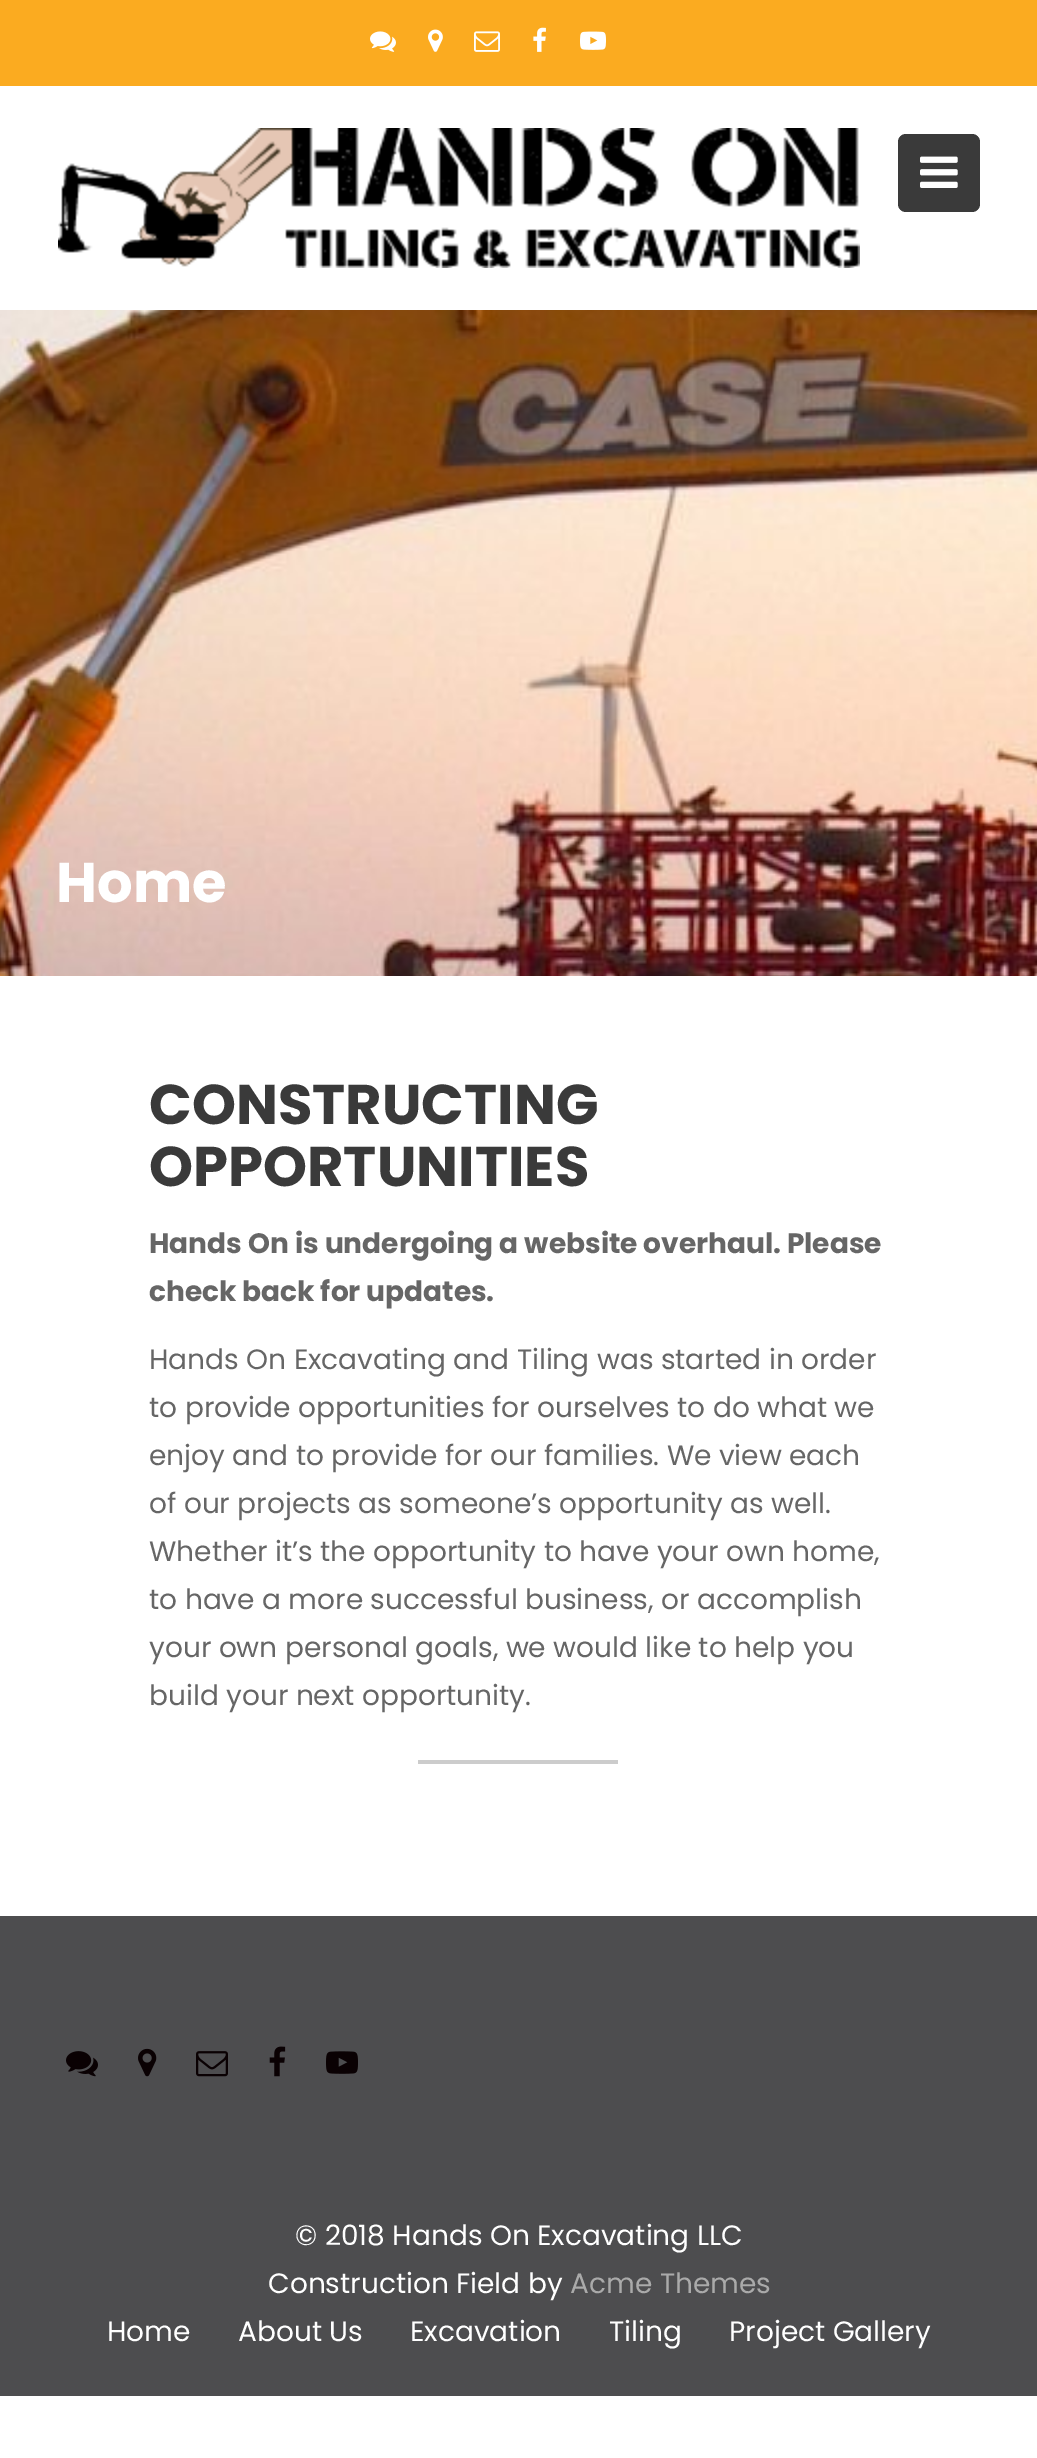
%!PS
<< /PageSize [1037 2458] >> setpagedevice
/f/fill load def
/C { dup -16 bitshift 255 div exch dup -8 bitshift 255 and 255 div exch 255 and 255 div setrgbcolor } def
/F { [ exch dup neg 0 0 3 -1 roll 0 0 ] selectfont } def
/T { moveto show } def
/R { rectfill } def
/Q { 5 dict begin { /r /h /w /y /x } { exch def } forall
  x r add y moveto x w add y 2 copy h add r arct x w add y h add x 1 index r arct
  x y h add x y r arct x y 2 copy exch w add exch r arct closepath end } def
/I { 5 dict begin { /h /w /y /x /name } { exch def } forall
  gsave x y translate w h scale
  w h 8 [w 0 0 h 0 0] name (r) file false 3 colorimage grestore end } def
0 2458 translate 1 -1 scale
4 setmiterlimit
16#FFFFFF C
0 0 1037 2458 R
16#FBAB20 C
0 0 1037 86 R
(1.rgb) 370 31 26 21 I
(2.rgb) 428 29 15 23 I
(3.rgb) 474 31 26 21 I
(4.rgb) 533 27 13 25 I
(5.rgb) 580 31 26 19 I
(6.rgb) 58 128 802 140 I
16#3A3A3A C
898 134 82 78 8 Q f
(7.rgb) 920 156 38 32 I
(8.rgb) 0 310 1037 666 I
/Poppins-Bold 56 F
16#FFFFFF C
(Home) 56 902 T
16#3A3A3A C
(CONSTRUCTING) 149 1124 T
(OPPORTUNITIES) 149 1186 T
/Poppins-Bold 28 F
16#666666 C
(Hands On is undergoing a website overhaul. Please) 149 1253 T
(check back for updates.) 149 1301 T
/Poppins-Regular 28 F
(Hands On Excavating and Tiling was started in order) 149 1369 T
(to provide opportunities for ourselves to do what we) 149 1417 T
(enjoy and to provide for our families. We view each) 149 1465 T
(of our projects as someone’s opportunity as well.) 149 1513 T
(Whether it’s the opportunity to have your own home,) 149 1561 T
(to have a more successful business, or accomplish) 149 1609 T
(your own personal goals, we would like to help you) 149 1657 T
(build your next opportunity.) 149 1705 T
16#CCCCCC C
418 1760 200 4 R
16#4D4D4F C
0 1916 1037 480 R
(9.rgb) 66 2051 32 26 I
(10.rgb) 138 2048 19 29 I
(11.rgb) 196 2051 32 26 I
(12.rgb) 269 2046 17 31 I
(13.rgb) 326 2051 32 23 I
16#FFFFFF C
(© 2018 Hands On Excavating LLC) 295 2245 T
(Construction Field by) 268 2293 T
16#AAAAAA C
(Acme Themes) 570 2293 T
16#FFFFFF C
(Home) 107 2341 T
(About Us) 238 2341 T
(Excavation) 410 2341 T
(Tiling) 609 2341 T
(Project Gallery) 729 2341 T
showpage
